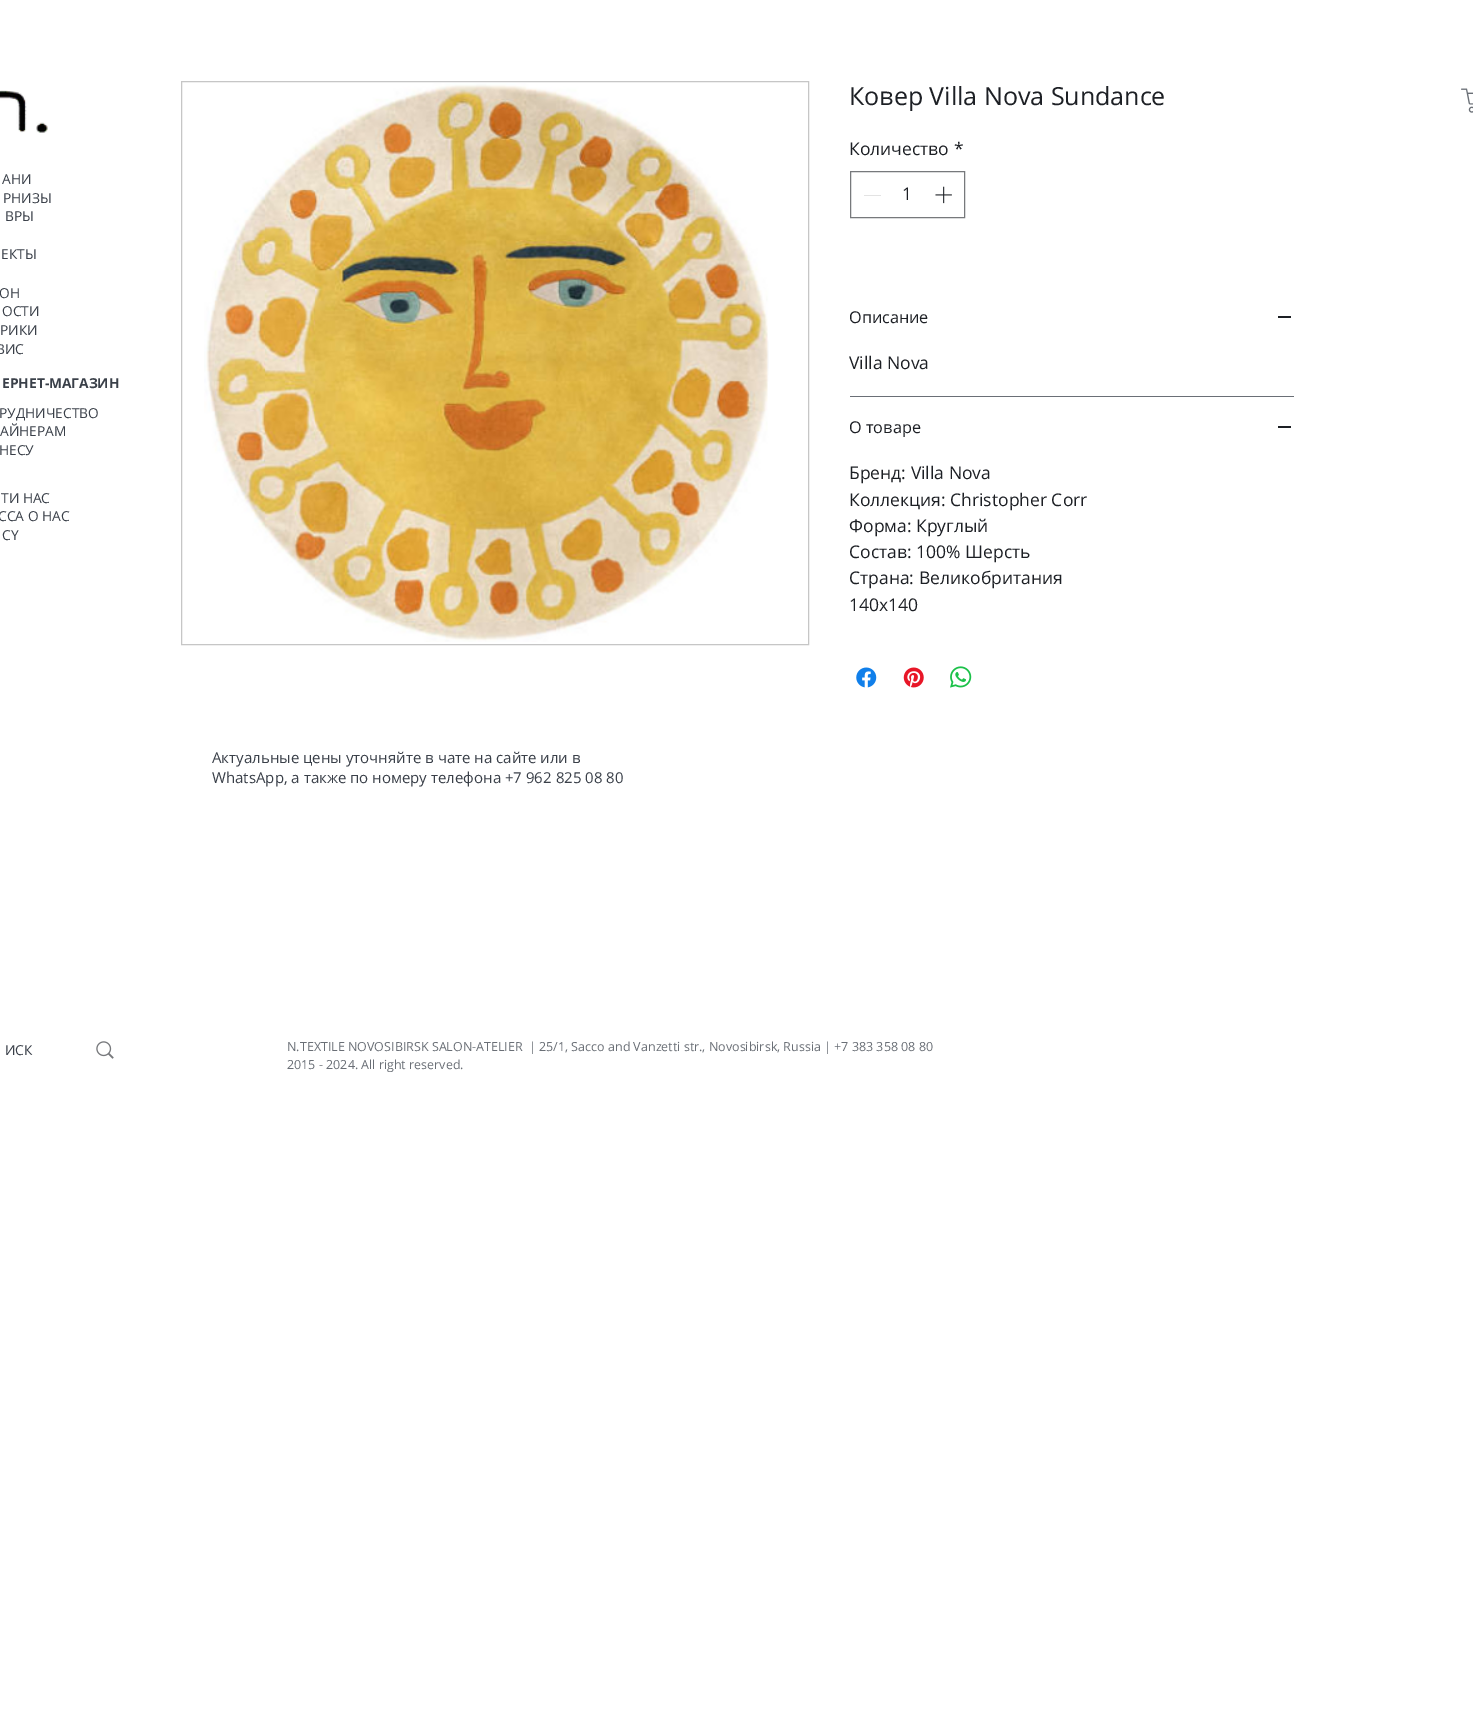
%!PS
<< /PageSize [1473 1721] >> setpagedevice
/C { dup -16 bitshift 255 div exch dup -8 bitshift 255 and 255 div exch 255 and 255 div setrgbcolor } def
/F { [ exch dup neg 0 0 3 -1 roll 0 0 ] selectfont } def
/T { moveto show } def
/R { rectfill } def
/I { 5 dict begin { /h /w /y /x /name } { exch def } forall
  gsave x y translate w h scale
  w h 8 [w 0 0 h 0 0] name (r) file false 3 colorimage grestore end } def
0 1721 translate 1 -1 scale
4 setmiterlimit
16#FFFFFF C
0 0 1473 1721 R
(1.rgb) 1461 88 12 25 I
(2.rgb) 0 90 48 43 I
/OpenSans-Regular 13.75 F
16#3A4049 C
(АНИ) 2 184 T
(РНИЗЫ) 3 203 T
(ВРЫ) 5 221 T
(ЕКТЫ) 1 259 T
(ОН) -1 298 T
(ОСТИ) 2 316 T
(РИКИ) 0 335 T
(ВИС) -4 354 T
/OpenSans-Bold 13.75 F
(ЕРНЕТ-МАГАЗИН) 2 388 T
/OpenSans-Regular 13.75 F
(РУДНИЧЕСТВО) -1 418 T
(АЙНЕРАМ) 0 436 T
(НЕСУ) -1 455 T
(ТИ НАС) 1 503 T
(ССА О НАС) -2 521 T
(CY) 2 540 T
16#C6C6C6 C
181.5 81.5 627 563 rectstroke
(3.rgb) 204 83 565 559 I
/OpenSans-Regular 25 F
16#1D2025 C
(Ковер Villa Nova Sundance) 849 105 T
/OpenSans-Regular 17.5 F
(Количество) 849 155 T
(*) 954 155 T
16#77797C C
850.5 171.5 114 46 rectstroke
16#E3E3E3 C
864 195 17 1 R
16#1D2025 C
(1) 902 200 T
(4.rgb) 935 186 17 18 I
16#6A6F76 C
850 396 444 1 R
/OpenSans-Regular 16.25 F
16#1D2025 C
(Описание) 849 323 T
1278 316 13 2 R
/OpenSans-Regular 17.5 F
(Villa Nova) 849 369 T
/OpenSans-Regular 16.25 F
(О товаре) 849 433 T
1278 426 13 2 R
/OpenSans-Regular 17.5 F
(Бренд: Villa Nova) 849 479 T
(Коллекция: Christopher Corr) 849 506 T
(Форма: Круглый) 849 532 T
(Состав: 100% Шерсть) 849 558 T
(Страна: Великобритания) 849 584 T
(140х140) 849 611 T
(5.rgb) 856 667 21 21 I
(6.rgb) 903 667 21 21 I
(7.rgb) 950 666 22 22 I
/OpenSans-Regular 15 F
16#3A4049 C
(Актуальные цены уточняйте в чате на сайте или в) 212 763 T
(WhatsApp, а также по номеру телефона +7 962 825 08 80) 212 783 T
/OpenSans-Regular 13.75 F
(ИСК) 5 1055 T
(8.rgb) 96 1041 18 18 I
/OpenSans-Regular 12.5 F
16#6A6F76 C
(N.TEXTILE NOVOSIBIRSK SALON-ATELIER  | 25/1, Sacco and Vanzetti str., Novosibirsk, Russia | +7 383 358 08 80) 287 1051 T
(2015 - 2024. All right reserved.) 287 1069 T
showpage
